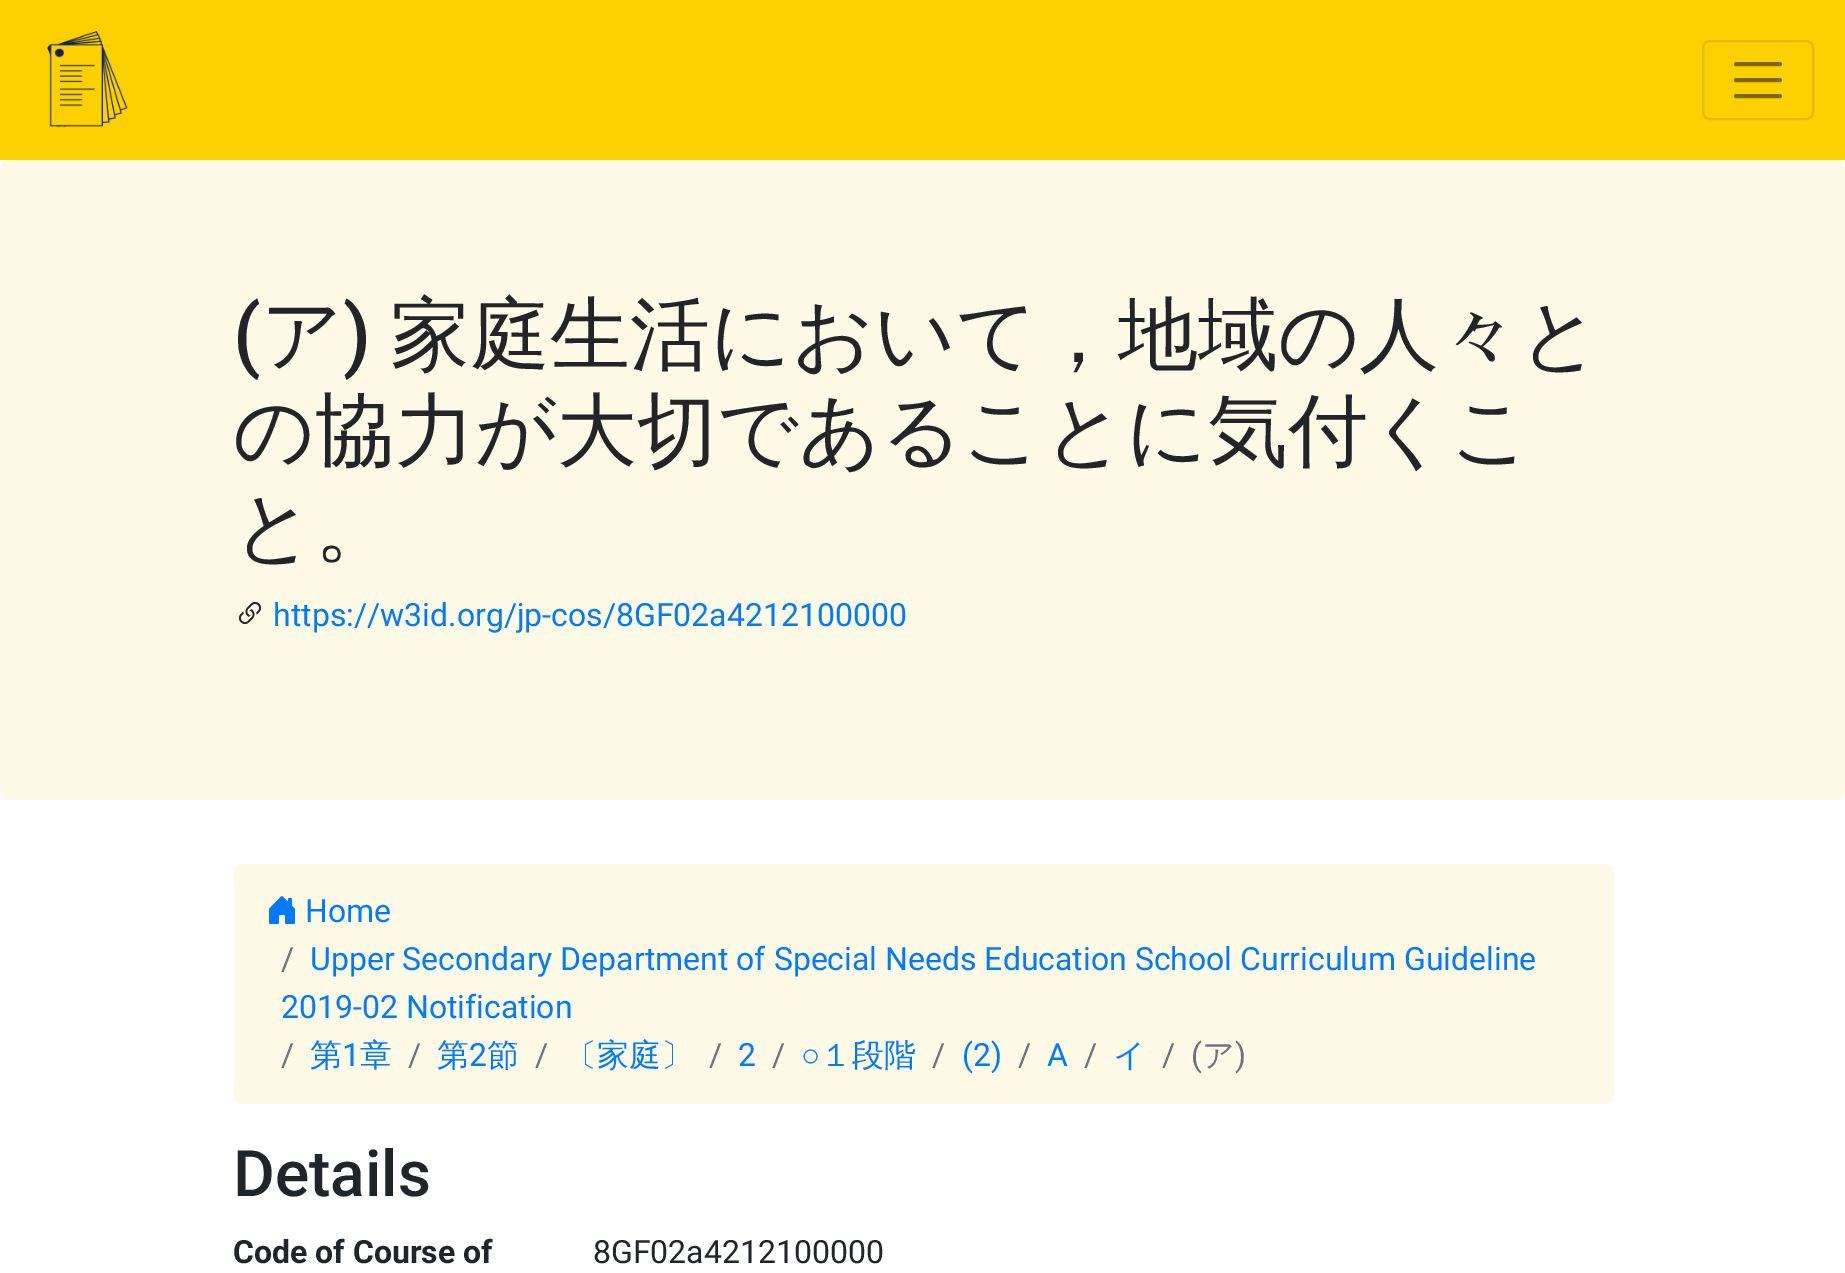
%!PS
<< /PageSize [1845 1273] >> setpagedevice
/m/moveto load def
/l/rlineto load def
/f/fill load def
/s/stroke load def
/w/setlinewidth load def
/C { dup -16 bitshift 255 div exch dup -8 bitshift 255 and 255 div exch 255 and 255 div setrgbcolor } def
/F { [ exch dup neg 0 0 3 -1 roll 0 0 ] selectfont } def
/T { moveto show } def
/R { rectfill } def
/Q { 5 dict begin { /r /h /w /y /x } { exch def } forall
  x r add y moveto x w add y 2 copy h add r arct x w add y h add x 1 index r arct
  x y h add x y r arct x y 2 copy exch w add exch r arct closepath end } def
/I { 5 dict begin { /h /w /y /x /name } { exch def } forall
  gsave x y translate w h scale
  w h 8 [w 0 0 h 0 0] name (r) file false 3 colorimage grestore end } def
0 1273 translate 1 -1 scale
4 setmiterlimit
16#FFFFFF C
0 0 1845 1273 R
16#FDD000 C
0 0 1845 160 R
(1.rgb) 47 31 81 97 I
16#E4BB00 C
2 w
1703 41 110 78 7 Q s
16#7F6800 C
4 w
1 setlinecap
1736 64 m 44 0 l 1736 80 m 44 0 l 1736 96 m 44 0 l s
16#FFFAE5 C
0 160 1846 640 10 Q f
/Roboto-Medium 80 F
16#212529 C
(\() 233 362 T
/WenQuanYiZenHei-Medium 80 F
(ア) 261 362 T
/Roboto-Medium 80 F
(\)) 343 362 T
/WenQuanYiZenHei-Medium 80 F
(家庭生活において，地域の人々と) 390 362 T
(の協力が大切であることに気付くこ) 233 458 T
(と。) 233 554 T
(2.rgb) 238 602 24 22 I
/Roboto-Regular 32 F
16#007BFF C
(https://w3id.org/jp-cos/8GF02a4212100000) 273 626 T
16#FFFAE5 C
234 864 1380 240 8 Q f
(3.rgb) 269 896 26 28 I
16#007BFF C
(Home) 305 922 T
16#6C757D C
(/) 281 970 T
16#007BFF C
(Upper Secondary Department of Special Needs Education School Curriculum Guideline) 310 970 T
(2019-02 Notification) 281 1018 T
16#6C757D C
(/) 281 1066 T
/WenQuanYiZenHei-Medium 32 F
16#007BFF C
(第) 310 1066 T
/Roboto-Regular 32 F
(1) 342 1066 T
/WenQuanYiZenHei-Medium 32 F
(章) 360 1066 T
/Roboto-Regular 32 F
16#6C757D C
(/) 408 1066 T
/WenQuanYiZenHei-Medium 32 F
16#007BFF C
(第) 437 1066 T
/Roboto-Regular 32 F
(2) 469 1066 T
/WenQuanYiZenHei-Medium 32 F
(節) 487 1066 T
/Roboto-Regular 32 F
16#6C757D C
(/) 535 1066 T
/WenQuanYiZenHei-Medium 32 F
16#007BFF C
(〔家庭〕) 565 1066 T
/Roboto-Regular 32 F
16#6C757D C
(/) 709 1066 T
16#007BFF C
(2) 738 1066 T
16#6C757D C
(/) 772 1066 T
/LiberationSans-Regular 32 F
16#007BFF C
(○) 801 1066 T
/WenQuanYiZenHei-Medium 32 F
(１段階) 820 1066 T
/Roboto-Regular 32 F
16#6C757D C
(/) 932 1066 T
16#007BFF C
(\(2\)) 962 1066 T
16#6C757D C
(/) 1018 1066 T
16#007BFF C
(A) 1047 1066 T
16#6C757D C
(/) 1084 1066 T
/WenQuanYiZenHei-Medium 32 F
16#007BFF C
(イ) 1113 1066 T
/Roboto-Regular 32 F
16#6C757D C
(/) 1162 1066 T
(\() 1191 1066 T
/WenQuanYiZenHei-Medium 32 F
(ア) 1202 1066 T
/Roboto-Regular 32 F
(\)) 1235 1066 T
/Roboto-Medium 64 F
16#212529 C
(Details) 233 1196 T
/Roboto-Bold 32 F
(Code of Course of) 233 1263 T
/Roboto-Regular 32 F
(8GF02a4212100000) 593 1263 T
showpage
